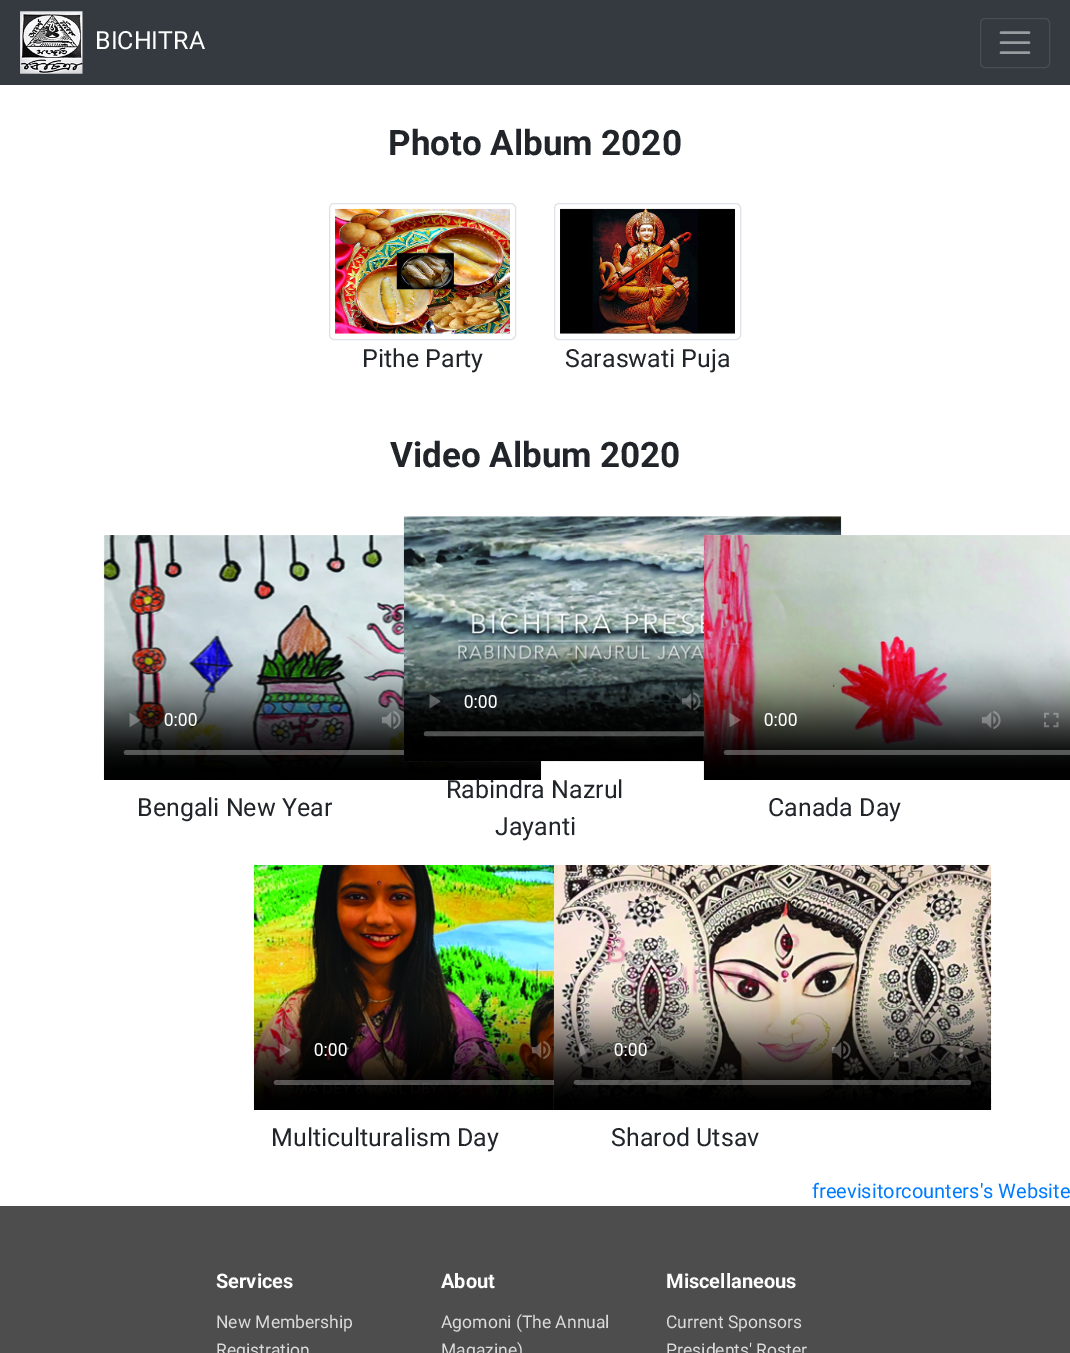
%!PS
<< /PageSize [1070 1353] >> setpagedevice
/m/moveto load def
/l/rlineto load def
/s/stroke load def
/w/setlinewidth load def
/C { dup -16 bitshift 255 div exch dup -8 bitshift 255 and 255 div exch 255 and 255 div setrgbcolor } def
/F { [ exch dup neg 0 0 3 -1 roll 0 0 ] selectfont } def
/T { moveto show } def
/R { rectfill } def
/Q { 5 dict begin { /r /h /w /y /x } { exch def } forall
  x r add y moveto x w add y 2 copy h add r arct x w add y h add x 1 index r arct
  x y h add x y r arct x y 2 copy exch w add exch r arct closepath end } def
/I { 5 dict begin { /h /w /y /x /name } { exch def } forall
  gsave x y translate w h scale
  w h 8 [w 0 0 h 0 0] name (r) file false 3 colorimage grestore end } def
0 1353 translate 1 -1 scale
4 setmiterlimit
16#FFFFFF C
0 0 1070 1353 R
16#343A40 C
0 0 1070 85 R
(1.rgb) 20 11 63 63 I
/Roboto-Regular 25 F
16#FFFFFF C
(BICHITRA) 95 49 T
16#484E53 C
980.5 18.5 69 49 4.5 Q s
16#9A9DA0 C
2.5 w
1 setlinecap
1001 32.5 m 28 0 l 1001 42.5 m 28 0 l 1001 52.5 m 28 0 l s
/Roboto-Bold 35 F
16#212529 C
(Photo Album 2020) 388 155 T
16#DEE2E6 C
1 w
0 setlinecap
329.5 203.5 186 136 4.5 Q s
(2.rgb) 335 208 175 126 I
/Roboto-Regular 25 F
16#212529 C
(Pithe Party) 362 367 T
16#DEE2E6 C
554.5 203.5 186 136 4.5 Q s
(3.rgb) 560 208 175 126 I
16#212529 C
(Saraswati Puja) 565 367 T
/Roboto-Bold 35 F
(Video Album 2020) 390 467 T
(4.rgb) 103 535 439 245 I
/Roboto-Regular 25 F
(Bengali New Year) 137 816 T
(5.rgb) 403 516 439 246 I
(Rabindra Nazrul) 446 798 T
(Jayanti) 495 835 T
(6.rgb) 703 535 367 245 I
(Canada Day) 768 816 T
(7.rgb) 253 865 301 245 I
(Multiculturalism Day) 271 1146 T
(8.rgb) 553 865 439 245 I
(Sharod Utsav) 611 1146 T
/Roboto-Regular 20 F
16#007BFF C
(freevisitorcounters's Website) 812 1198 T
16#4D4D4D C
0 1206 1070 147 R
/Roboto-Bold 20 F
16#FFFFFF C
(Services) 216 1288 T
/Roboto-Regular 17.5 F
16#DBDBDB C
(New Membership) 216 1328 T
(Registration) 216 1356 T
/Roboto-Bold 20 F
16#FFFFFF C
(About) 441 1288 T
/Roboto-Regular 17.5 F
16#DBDBDB C
(Agomoni \(The Annual) 441 1328 T
(Magazine\)) 441 1356 T
/Roboto-Bold 20 F
16#FFFFFF C
(Miscellaneous) 666 1288 T
/Roboto-Regular 17.5 F
16#DBDBDB C
(Current Sponsors) 666 1328 T
(Presidents' Roster) 666 1356 T
showpage
